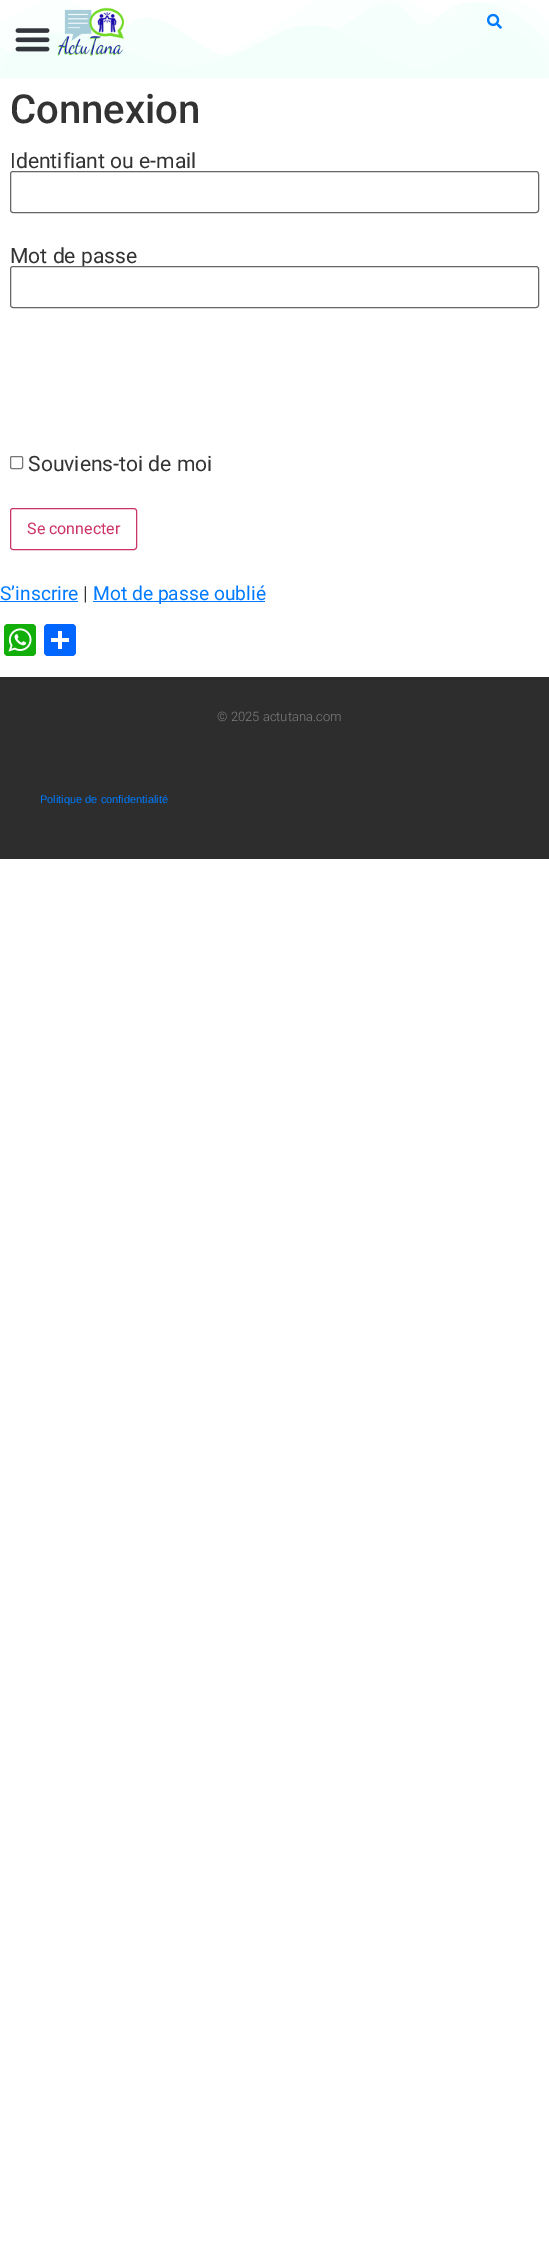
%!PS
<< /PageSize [549 2262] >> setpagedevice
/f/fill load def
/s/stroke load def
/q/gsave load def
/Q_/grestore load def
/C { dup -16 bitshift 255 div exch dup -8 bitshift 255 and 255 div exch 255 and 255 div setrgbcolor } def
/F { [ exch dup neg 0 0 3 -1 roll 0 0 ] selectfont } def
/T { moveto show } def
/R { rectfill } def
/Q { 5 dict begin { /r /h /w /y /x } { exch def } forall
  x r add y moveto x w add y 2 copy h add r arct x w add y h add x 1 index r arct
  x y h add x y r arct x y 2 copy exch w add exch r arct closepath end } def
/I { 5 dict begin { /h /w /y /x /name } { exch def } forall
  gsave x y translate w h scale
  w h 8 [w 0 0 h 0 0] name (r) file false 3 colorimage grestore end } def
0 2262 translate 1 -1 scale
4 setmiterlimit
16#FFFFFF C
0 0 549 2262 R
(1.rgb) 0 0 549 78 I
(2.rgb) 15 28 35 24 I
(3.rgb) 57 7 68 50 I
(4.rgb) 487 13 15 16 I
/Roboto-Medium 40 F
16#333333 C
(Connexion) 10 123 T
/Roboto-Regular 21.1 F
(Identifiant ou e-mail) 10 168 T
16#666666 C
10.5 171.5 528 41 2.5 Q s
16#333333 C
(Mot de passe) 10 263 T
16#FFFFFF C
10.5 266.5 528 41 2.5 Q q f Q_
16#666666 C
s
16#767676 C
10.5 456.5 12 12 1.5 Q s
16#333333 C
(Souviens-toi de moi) 28 471 T
16#CC3366 C
10.5 508.5 126 41 2.5 Q s
/Roboto-Regular 16 F
(Se connecter) 27 534 T
/Roboto-Regular 19.25 F
16#007BFF C
(S’inscrire) 0 600 T
0 601 78 1 R
16#333333 C
(|) 83 600 T
16#007BFF C
93 601 172 1 R
(Mot de passe oublié) 93 600 T
16#12AF0A C
4 624 32 32 4 Q f
(5.rgb) 8 628 24 24 I
16#0166FF C
44 624 32 32 4 Q f
16#FFFFFF C
58 631 4 18 R
51 638 18 4 R
16#2D2D2D C
0 677 549 182 R
/Roboto-Light 13 F
16#7F7F7F C
(© 2025 actutana.com) 217 721 T
/LiberationSans-Regular 11 F
16#007BFF C
(Politique de confidentialité) 40 803 T
showpage
